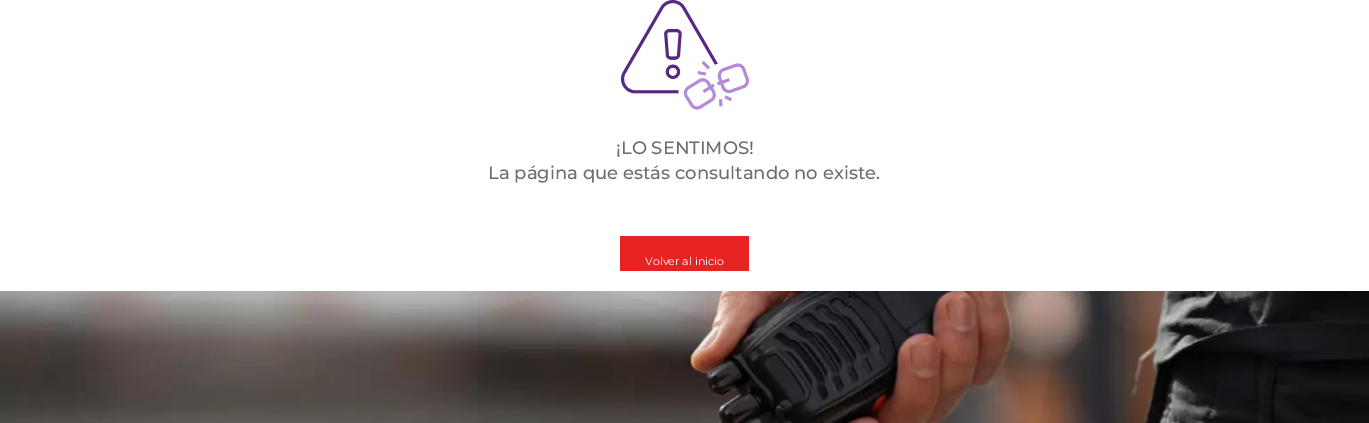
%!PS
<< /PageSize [1369 423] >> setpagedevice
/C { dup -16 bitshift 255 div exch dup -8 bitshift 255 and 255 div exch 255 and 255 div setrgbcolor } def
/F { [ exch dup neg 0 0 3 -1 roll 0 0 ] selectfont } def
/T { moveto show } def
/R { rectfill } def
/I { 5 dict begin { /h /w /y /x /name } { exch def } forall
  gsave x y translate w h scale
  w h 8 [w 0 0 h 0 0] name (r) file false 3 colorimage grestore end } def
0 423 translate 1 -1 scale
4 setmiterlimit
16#FFFFFF C
0 0 1369 423 R
(1.rgb) 621 0 128 110 I
/Montserrat-Medium 18 F
16#6D6D6D C
(¡LO SENTIMOS!) 616 154 T
(La página que estás consultando no existe.) 488 179 T
16#E82121 C
620 236 129 35 R
/Montserrat-Regular 11 F
16#FFFFFF C
(Volver al inicio) 645 265 T
(3.rgb) 0 291 1369 132 I
(2.rgb) 477 291 580 132 I
showpage
